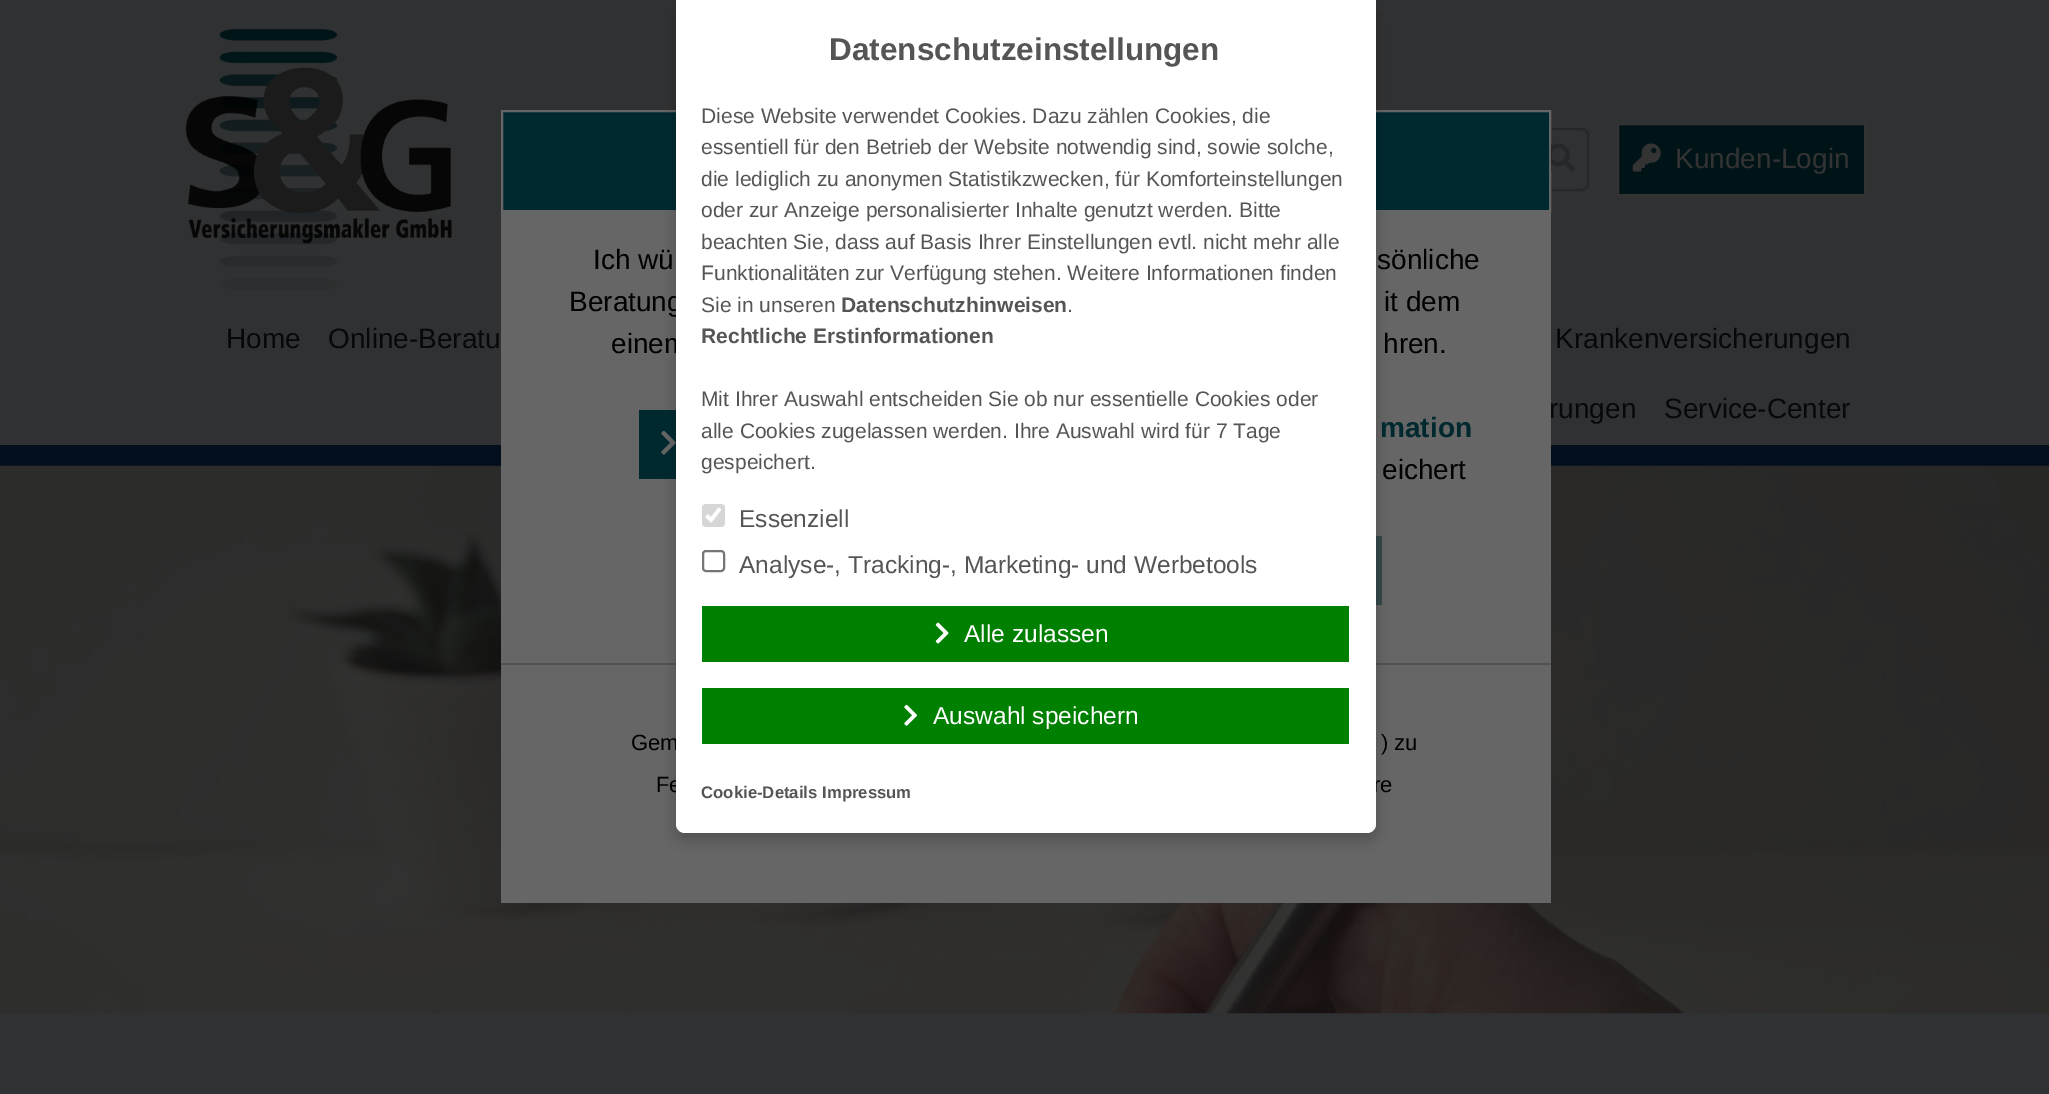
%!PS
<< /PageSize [2049 1094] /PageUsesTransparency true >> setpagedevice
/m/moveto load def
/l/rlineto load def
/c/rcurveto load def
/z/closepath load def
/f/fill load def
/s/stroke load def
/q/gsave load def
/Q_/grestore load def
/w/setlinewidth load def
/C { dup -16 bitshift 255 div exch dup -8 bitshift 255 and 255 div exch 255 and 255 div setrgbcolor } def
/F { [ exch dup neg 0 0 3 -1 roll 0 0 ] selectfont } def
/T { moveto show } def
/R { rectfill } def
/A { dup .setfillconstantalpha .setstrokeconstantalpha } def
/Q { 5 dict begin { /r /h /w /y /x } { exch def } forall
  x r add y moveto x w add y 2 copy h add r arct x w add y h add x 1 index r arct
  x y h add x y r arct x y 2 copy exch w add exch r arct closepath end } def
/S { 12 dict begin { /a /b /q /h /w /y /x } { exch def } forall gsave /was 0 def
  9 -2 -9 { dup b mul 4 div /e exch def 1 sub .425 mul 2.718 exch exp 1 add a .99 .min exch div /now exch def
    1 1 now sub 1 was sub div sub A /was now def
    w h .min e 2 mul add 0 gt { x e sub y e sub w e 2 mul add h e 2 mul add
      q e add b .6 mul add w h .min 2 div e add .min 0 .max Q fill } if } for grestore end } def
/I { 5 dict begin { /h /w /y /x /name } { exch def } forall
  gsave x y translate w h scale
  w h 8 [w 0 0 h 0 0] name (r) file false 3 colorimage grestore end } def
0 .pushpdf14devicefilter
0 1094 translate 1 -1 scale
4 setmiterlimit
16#303132 C
0 0 2049 1094 R
/LiberationSans-Regular 28 F
16#07080A C
(rungen) 1549 418 T
16#020E1C C
0 445 2049 21 R
(7.rgb) 0 465 2049 549 I
16#666666 C
501 212 1050 691 R
16#252729 C
2 w
1534 129 54 61 6 Q s
16#00292F C
502 111 m 1048 0 l 0 100 l -1048 0 l z q f Q_
16#666666 C
s
16#00292F C
639 410 37 69 R
(6.rgb) 661 430 15 25 I
16#33484A C
1376 536 6 69 R
16#525252 C
501 663 1050 2 R
16#000000 C
676 7 700 833 9 7 .2 S
(Beratung) 569 311 T
(einem) 611 353 T
/LiberationSans-Regular 22 F
(Gem) 631 750 T
(Fe) 656 792 T
(re) 1373 792 T
16#FFFFFF C
676 0 m 700 0 l 0 824 l 0 5 -4 9 -9 9 c -682 0 l -5 0 -9 -4 -9 -9 c z f
/LiberationSans-Bold 31.5 F
16#555555 C
(Datenschutzeinstellungen) 829 60 T
/LiberationSans-Regular 21 F
(Diese Website verwendet Cookies. Dazu zählen Cookies, die) 701 123 T
(essentiell für den Betrieb der Website notwendig sind, sowie solche,) 701 154 T
(die lediglich zu anonymen Statistikzwecken, für Komforteinstellungen) 701 186 T
(oder zur Anzeige personalisierter Inhalte genutzt werden. Bitte) 701 217 T
(beachten Sie, dass auf Basis Ihrer Einstellungen evtl. nicht mehr alle) 701 249 T
(Funktionalitäten zur Verfügung stehen. Weitere Informationen finden) 701 280 T
(Sie in unseren) 701 312 T
/LiberationSans-Bold 21 F
(Datenschutzhinweisen) 841 312 T
/LiberationSans-Regular 21 F
(.) 1067 312 T
/LiberationSans-Bold 21 F
(Rechtliche Erstinformationen) 701 343 T
/LiberationSans-Regular 21 F
(Mit Ihrer Auswahl entscheiden Sie ob nur essentielle Cookies oder) 701 406 T
(alle Cookies zugelassen werden. Ihre Auswahl wird für 7 Tage) 701 438 T
(gespeichert.) 701 469 T
16#D6D6D6 C
702 504 23 23 4 Q f
16#FFFFFF C
3.6 w
706.5 515.5 m 4.5 4.5 l 9 -11.5 l s
/LiberationSans-Regular 24.5 F
16#555555 C
(Essenziell) 739 527 T
16#767676 C
2 w
703 551 21 20 3 Q s
16#555555 C
(Analyse-, Tracking-, Marketing- und Werbetools) 739 573 T
16#008000 C
702 606 647 56 R
(1.rgb) 935 622 14 22 I
16#FFFFFF C
(Alle zulassen) 964 642 T
16#008000 C
702 688 647 56 R
(2.rgb) 904 704 13 22 I
16#FFFFFF C
(Auswahl speichern) 933 724 T
/LiberationSans-Bold 16.75 F
16#555555 C
(Cookie-Details Impressum) 701 798 T
(3.rgb) 185 28 267 262 I
(4.rgb) 1551 143 24 29 I
16#001418 C
1618 124 m 247 0 l 0 71 l -247 0 l z q f Q_
16#333333 C
s
(5.rgb) 1632 143 29 29 I
/LiberationSans-Regular 28 F
(Kunden-Login) 1675 168 T
16#07080A C
(Home) 226 348 T
(Online-Beratu) 328 348 T
(Krankenversicherungen) 1555 348 T
(Service-Center) 1664 418 T
16#000000 C
(Ich wü) 593 269 T
(sönliche) 1377 269 T
(it dem) 1384 311 T
(hren.) 1383 353 T
/LiberationSans-Bold 28 F
16#00292F C
(mation) 1380 437 T
/LiberationSans-Regular 28 F
16#000000 C
(eichert) 1382 479 T
/LiberationSans-Regular 22 F
(\) zu) 1381 750 T
.poppdf14devicefilter showpage
